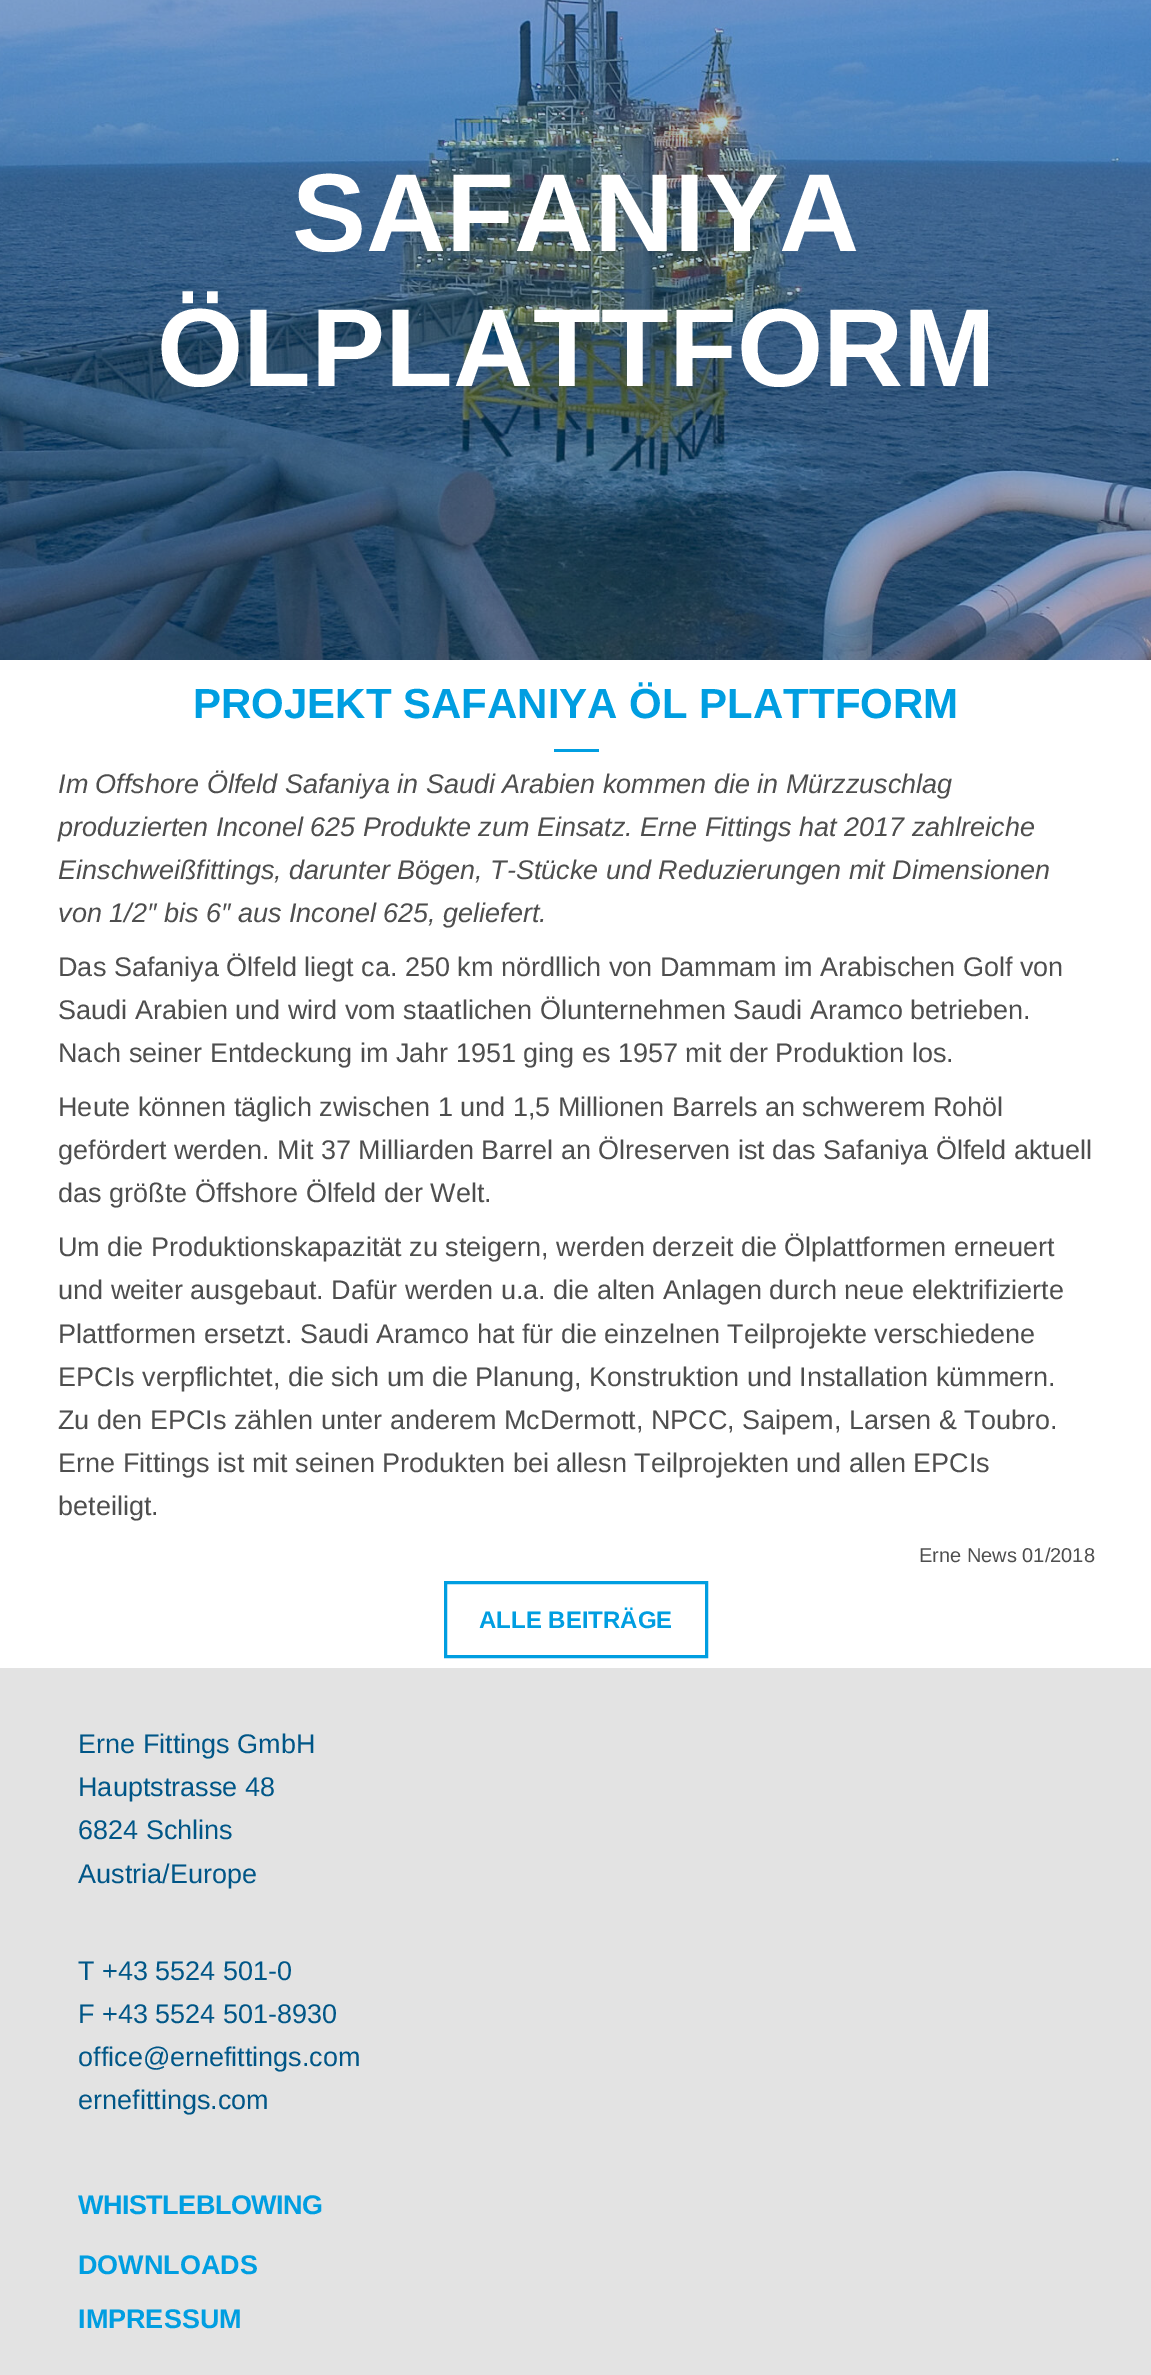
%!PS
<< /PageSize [1151 2375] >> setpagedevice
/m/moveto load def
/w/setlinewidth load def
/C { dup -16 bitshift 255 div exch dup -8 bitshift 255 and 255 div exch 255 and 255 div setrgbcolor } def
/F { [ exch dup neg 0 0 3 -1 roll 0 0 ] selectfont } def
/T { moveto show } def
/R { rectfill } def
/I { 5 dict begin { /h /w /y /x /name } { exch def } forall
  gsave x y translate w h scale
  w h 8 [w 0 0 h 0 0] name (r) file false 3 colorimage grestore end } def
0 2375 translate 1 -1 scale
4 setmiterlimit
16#FFFFFF C
0 0 1151 2375 R
(1.rgb) 0 0 1151 660 I
/LiberationSans-Bold 111 F
(SAFANIYA) 292 251 T
(ÖLPLATTFORM) 157 386 T
/LiberationSans-Bold 42 F
16#009EE1 C
(PROJEKT SAFANIYA ÖL PLATTFORM) 193 718 T
554 749 45 3 R
/LiberationSans-Italic 27 F
16#4E4E4E C
(Im Offshore Ölfeld Safaniya in Saudi Arabien kommen die in Mürzzuschlag) 58 793 T
(produzierten Inconel 625 Produkte zum Einsatz. Erne Fittings hat 2017 zahlreiche) 58 836 T
(Einschweißfittings, darunter Bögen, T-Stücke und Reduzierungen mit Dimensionen) 58 879 T
(von 1/2″ bis 6″ aus Inconel 625, geliefert.) 58 922 T
/LiberationSans-Regular 27 F
(Das Safaniya Ölfeld liegt ca. 250 km nördllich von Dammam im Arabischen Golf von) 58 976 T
(Saudi Arabien und wird vom staatlichen Ölunternehmen Saudi Aramco betrieben.) 58 1019 T
(Nach seiner Entdeckung im Jahr 1951 ging es 1957 mit der Produktion los.) 58 1062 T
(Heute können täglich zwischen 1 und 1,5 Millionen Barrels an schwerem Rohöl) 58 1116 T
(gefördert werden. Mit 37 Milliarden Barrel an Ölreserven ist das Safaniya Ölfeld aktuell) 58 1159 T
(das größte Öffshore Ölfeld der Welt.) 58 1202 T
(Um die Produktionskapazität zu steigern, werden derzeit die Ölplattformen erneuert) 58 1256 T
(und weiter ausgebaut. Dafür werden u.a. die alten Anlagen durch neue elektrifizierte) 58 1299 T
(Plattformen ersetzt. Saudi Aramco hat für die einzelnen Teilprojekte verschiedene) 58 1343 T
(EPCIs verpflichtet, die sich um die Planung, Konstruktion und Installation kümmern.) 58 1386 T
(Zu den EPCIs zählen unter anderem McDermott, NPCC, Saipem, Larsen & Toubro.) 58 1429 T
(Erne Fittings ist mit seinen Produkten bei allesn Teilprojekten und allen EPCIs) 58 1472 T
(beteiligt.) 58 1515 T
/LiberationSans-Regular 20 F
(Erne News 01/2018) 919 1562 T
16#009EE1 C
3 w
445.5 1582.5 261 74 rectstroke
/LiberationSans-Bold 24 F
(ALLE BEITRÄGE) 479 1628 T
16#E3E3E3 C
0 1668 1151 707 R
/LiberationSans-Regular 27 F
16#005687 C
(Erne Fittings GmbH) 78 1753 T
(Hauptstrasse 48) 78 1796 T
(6824 Schlins) 78 1839 T
(Austria/Europe) 78 1883 T
(T +43 5524 501-0) 78 1980 T
(F +43 5524 501-8930) 78 2023 T
(office@ernefittings.com) 78 2066 T
(ernefittings.com) 78 2109 T
/LiberationSans-Bold 27 F
16#009EE1 C
78 2214 m -.5 0 (WHISTLEBLOWING) ashow
(DOWNLOADS) 78 2274 T
(IMPRESSUM) 78 2328 T
showpage
